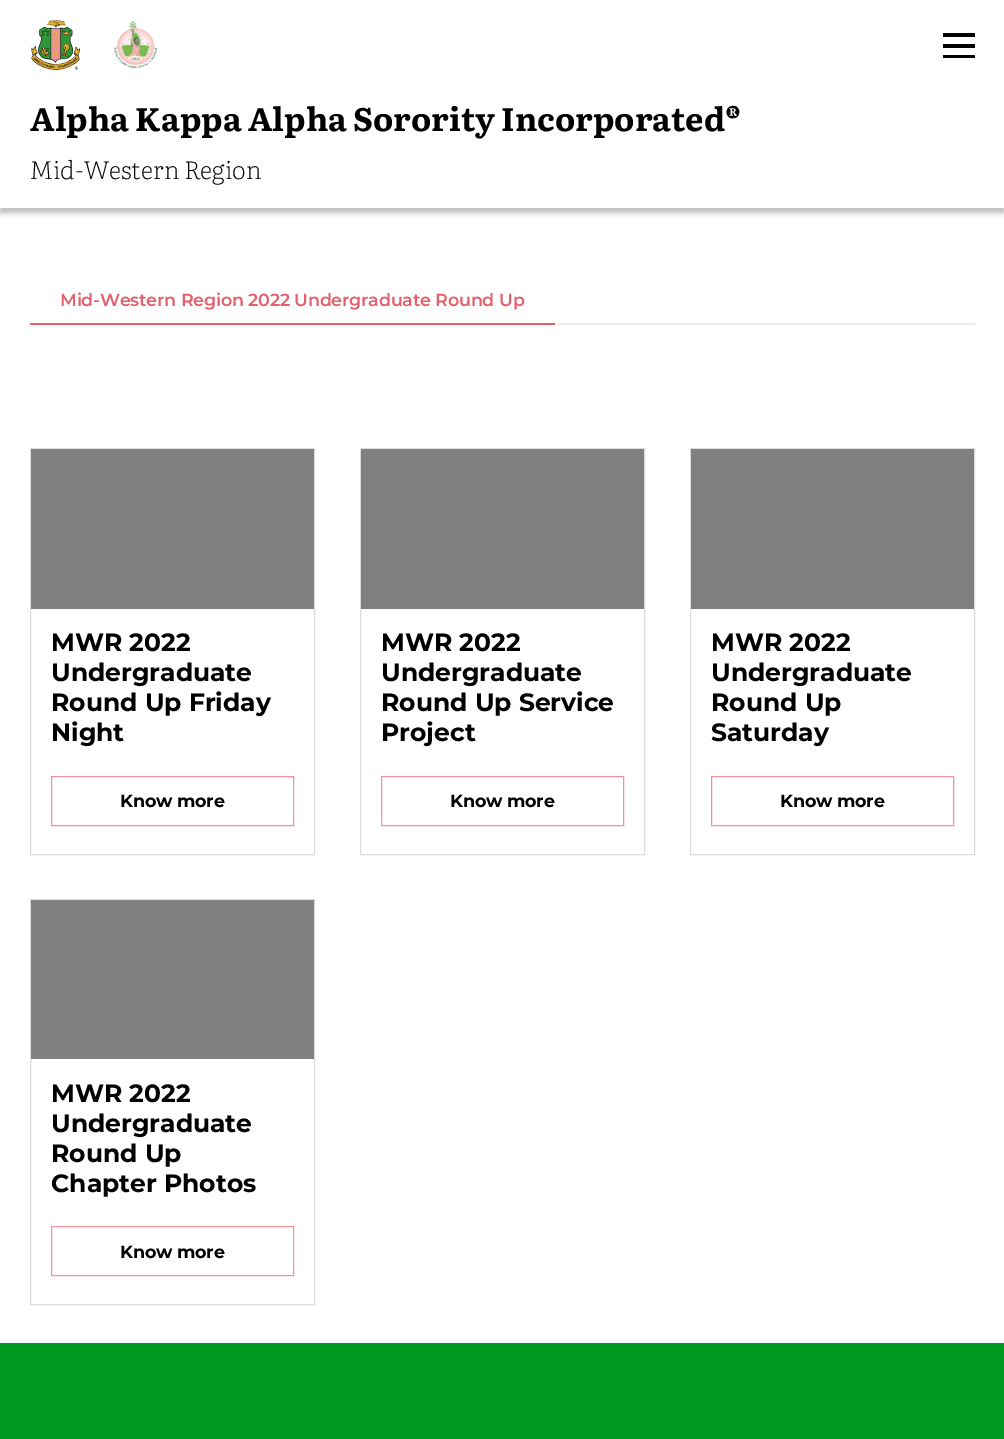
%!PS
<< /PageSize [1004 1439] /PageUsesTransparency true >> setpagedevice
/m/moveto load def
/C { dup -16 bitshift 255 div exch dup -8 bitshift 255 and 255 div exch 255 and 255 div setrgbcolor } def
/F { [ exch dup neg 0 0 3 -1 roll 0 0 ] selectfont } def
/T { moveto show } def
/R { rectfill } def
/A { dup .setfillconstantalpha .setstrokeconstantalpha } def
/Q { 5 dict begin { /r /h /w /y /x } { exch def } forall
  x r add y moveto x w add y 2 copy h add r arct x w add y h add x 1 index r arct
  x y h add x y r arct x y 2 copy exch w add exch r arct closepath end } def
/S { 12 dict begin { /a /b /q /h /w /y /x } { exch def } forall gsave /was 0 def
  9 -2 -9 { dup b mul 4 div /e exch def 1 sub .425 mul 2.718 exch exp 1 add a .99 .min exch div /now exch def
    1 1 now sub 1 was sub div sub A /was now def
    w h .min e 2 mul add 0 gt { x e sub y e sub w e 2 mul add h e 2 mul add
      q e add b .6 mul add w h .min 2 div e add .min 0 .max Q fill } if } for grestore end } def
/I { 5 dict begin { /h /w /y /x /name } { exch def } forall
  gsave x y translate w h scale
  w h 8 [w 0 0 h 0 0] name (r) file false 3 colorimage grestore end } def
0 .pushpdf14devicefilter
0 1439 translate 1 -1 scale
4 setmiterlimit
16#FFFFFF C
0 0 1004 1439 R
16#000000 C
0 -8 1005 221 0 2.5 .25 S
16#FFFFFF C
0 0 1004 208 R
(1.rgb) 31 20 49 50 I
(2.rgb) 114 21 44 48 I
16#000000 C
943 33 32 4 R
943 44 32 4 R
943 55 32 3 R
/Literata-Bold 32.5 F
(Alpha Kappa Alpha Sorority Incorporated®) 30 131 T
/Literata-ExtraLight 25 F
(Mid-Western Region) 30 179 T
/Montserrat-SemiBold 17.5 F
16#E25F6B C
60 306 m -.2 0 (Mid-Western Region 2022 Undergraduate Round Up) ashow
30 323 525 2 R
16#EBEBEB C
555 323 420 2 R
16#DDDDDD C
30.5 448.5 284 406 rectstroke
16#808080 C
31 449 283 160 R
/Montserrat-Bold 25 F
16#000000 C
(MWR 2022) 51 651 T
(Undergraduate) 51 681 T
(Round Up Friday) 51 711 T
(Night) 51 741 T
16#EF939E C
51.5 776.5 242 49 rectstroke
/Montserrat-Bold 17.5 F
16#000000 C
120 807 m -.2 0 (Know more) ashow
16#DDDDDD C
360.5 448.5 284 406 rectstroke
16#808080 C
361 449 283 160 R
/Montserrat-Bold 25 F
16#000000 C
(MWR 2022) 381 651 T
(Undergraduate) 381 681 T
(Round Up Service) 381 711 T
(Project) 381 741 T
16#EF939E C
381.5 776.5 242 49 rectstroke
/Montserrat-Bold 17.5 F
16#000000 C
450 807 m -.2 0 (Know more) ashow
16#DDDDDD C
690.5 448.5 284 406 rectstroke
16#808080 C
691 449 283 160 R
/Montserrat-Bold 25 F
16#000000 C
(MWR 2022) 711 651 T
(Undergraduate) 711 681 T
(Round Up) 711 711 T
(Saturday) 711 741 T
16#EF939E C
711.5 776.5 242 49 rectstroke
/Montserrat-Bold 17.5 F
16#000000 C
780 807 m -.2 0 (Know more) ashow
16#DDDDDD C
30.5 899.5 284 405 rectstroke
16#808080 C
31 900 283 159 R
/Montserrat-Bold 25 F
16#000000 C
(MWR 2022) 51 1102 T
(Undergraduate) 51 1132 T
(Round Up) 51 1162 T
(Chapter Photos) 51 1192 T
16#EF939E C
51.5 1226.5 242 49 rectstroke
/Montserrat-Bold 17.5 F
16#000000 C
120 1258 m -.2 0 (Know more) ashow
16#009A23 C
0 1343 1004 96 R
.poppdf14devicefilter showpage
